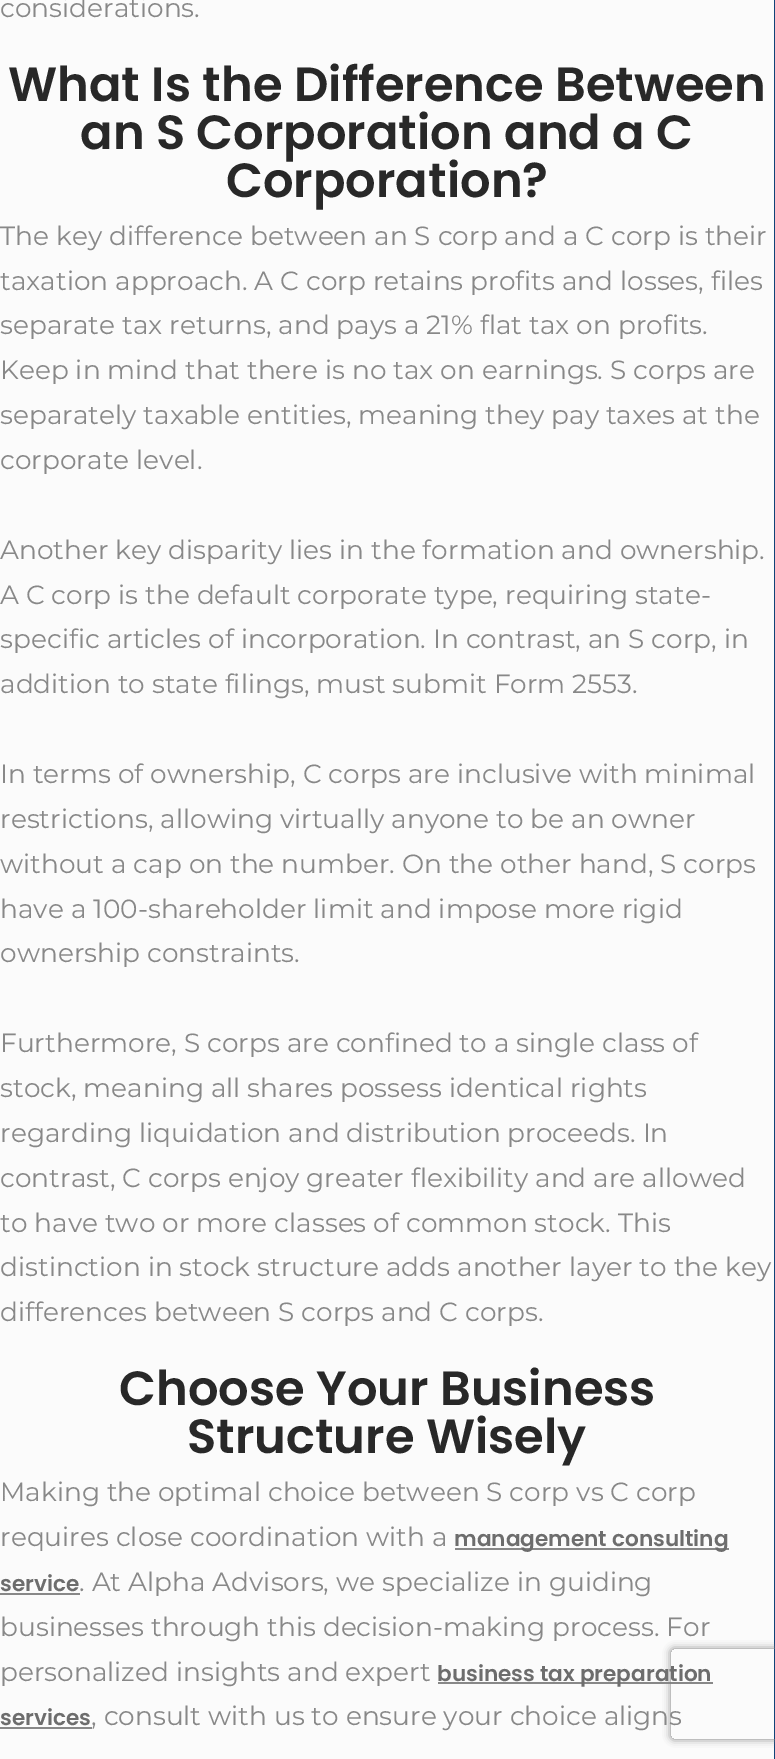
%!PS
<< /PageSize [775 1759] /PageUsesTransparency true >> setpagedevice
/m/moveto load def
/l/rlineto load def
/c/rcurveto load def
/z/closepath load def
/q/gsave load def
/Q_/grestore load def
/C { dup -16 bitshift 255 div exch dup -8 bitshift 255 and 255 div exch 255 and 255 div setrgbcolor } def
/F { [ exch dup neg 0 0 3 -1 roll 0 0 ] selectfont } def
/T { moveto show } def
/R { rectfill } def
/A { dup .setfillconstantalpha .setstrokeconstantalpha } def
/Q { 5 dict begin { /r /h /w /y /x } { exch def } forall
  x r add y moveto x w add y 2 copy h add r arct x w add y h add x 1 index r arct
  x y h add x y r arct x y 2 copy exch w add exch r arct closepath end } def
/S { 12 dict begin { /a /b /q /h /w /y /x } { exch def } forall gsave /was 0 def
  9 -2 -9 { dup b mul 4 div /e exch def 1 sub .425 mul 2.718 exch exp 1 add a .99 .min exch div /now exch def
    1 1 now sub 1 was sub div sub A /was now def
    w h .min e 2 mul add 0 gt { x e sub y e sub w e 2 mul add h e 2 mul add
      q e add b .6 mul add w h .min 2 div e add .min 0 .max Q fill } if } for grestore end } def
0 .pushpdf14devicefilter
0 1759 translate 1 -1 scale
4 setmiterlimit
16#FBFBFB C
0 0 775 1759 R
16#104378 C
774 0 1 1759 R
/Montserrat-Regular 26.4 F
16#888888 C
(considerations.) 0 17 T
/Poppins-SemiBold 48 F
16#282828 C
(What Is the Difference Between) 8 101 T
(an S Corporation and a C) 80 149 T
(Corporation?) 226 197 T
/Montserrat-Regular 26.4 F
16#888888 C
(The key difference between an S corp and a C corp is their) 0 245 T
(taxation approach. A C corp retains profits and losses, files) 0 290 T
(separate tax returns, and pays a 21% flat tax on profits.) 0 334 T
(Keep in mind that there is no tax on earnings. S corps are) 0 379 T
(separately taxable entities, meaning they pay taxes at the) 0 424 T
(corporate level.) 0 469 T
(Another key disparity lies in the formation and ownership.) 0 559 T
(A C corp is the default corporate type, requiring state-) 0 604 T
(specific articles of incorporation. In contrast, an S corp, in) 0 648 T
(addition to state filings, must submit Form 2553.) 0 693 T
(In terms of ownership, C corps are inclusive with minimal) 0 783 T
(restrictions, allowing virtually anyone to be an owner) 0 828 T
(without a cap on the number. On the other hand, S corps) 0 873 T
(have a 100-shareholder limit and impose more rigid) 0 918 T
(ownership constraints.) 0 962 T
(Furthermore, S corps are confined to a single class of) 0 1052 T
(stock, meaning all shares possess identical rights) 0 1097 T
(regarding liquidation and distribution proceeds. In) 0 1142 T
(contrast, C corps enjoy greater flexibility and are allowed) 0 1187 T
(to have two or more classes of common stock. This) 0 1232 T
(distinction in stock structure adds another layer to the key) 0 1276 T
(differences between S corps and C corps.) 0 1321 T
/Poppins-SemiBold 48 F
16#282828 C
(Choose Your Business) 119 1405 T
(Structure Wisely) 187 1453 T
/Montserrat-Regular 26.4 F
16#888888 C
(Making the optimal choice between S corp vs C corp) 0 1501 T
(requires close coordination with a) 0 1546 T
455 1548 274 2 R
/Poppins-SemiBold 21.6 F
16#6D6D6D C
(management consulting) 454 1546 T
(service) 0 1591 T
16#888888 C
0 1593 80 2 R
/Montserrat-Regular 26.4 F
(. At Alpha Advisors, we specialize in guiding) 79 1591 T
(businesses through this decision-making process. For) 0 1636 T
(personalized insights and expert) 0 1681 T
438 1682 275 2 R
/Poppins-SemiBold 21.6 F
16#6D6D6D C
(business tax preparation) 437 1681 T
(services) 0 1725 T
16#888888 C
0 1727 92 2 R
/Montserrat-Regular 26.4 F
(, consult with us to ensure your choice aligns) 91 1725 T
q
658 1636 m 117 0 l 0 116 l -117 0 l z 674 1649 m 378 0 l 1.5 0 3 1.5 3 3 c 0 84 l 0 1.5 -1.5 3 -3 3 c -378 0 l -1.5 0 -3 -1.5 -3 -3 c 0 -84 l 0 -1.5 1.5 -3 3 -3 c z eoclip newpath
16#808080 C
671 1649 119 90 3 4 1 S
Q_
.poppdf14devicefilter showpage
